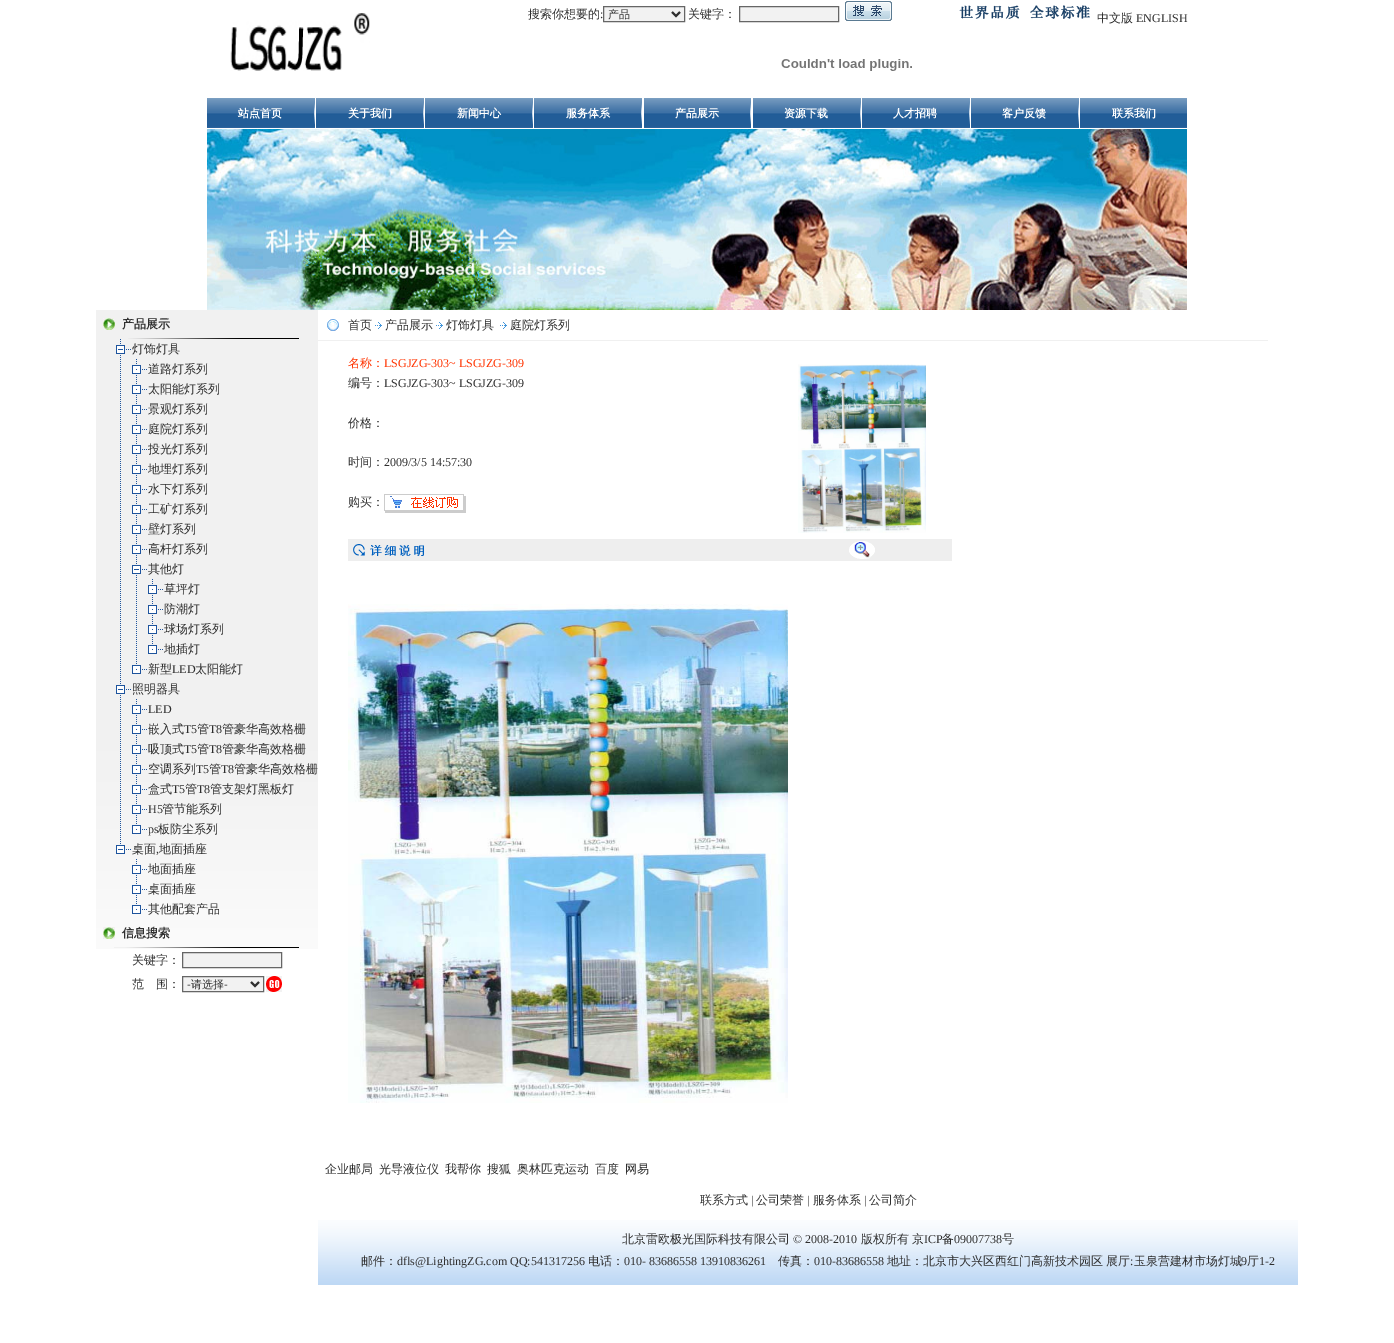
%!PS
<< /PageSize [1394 1343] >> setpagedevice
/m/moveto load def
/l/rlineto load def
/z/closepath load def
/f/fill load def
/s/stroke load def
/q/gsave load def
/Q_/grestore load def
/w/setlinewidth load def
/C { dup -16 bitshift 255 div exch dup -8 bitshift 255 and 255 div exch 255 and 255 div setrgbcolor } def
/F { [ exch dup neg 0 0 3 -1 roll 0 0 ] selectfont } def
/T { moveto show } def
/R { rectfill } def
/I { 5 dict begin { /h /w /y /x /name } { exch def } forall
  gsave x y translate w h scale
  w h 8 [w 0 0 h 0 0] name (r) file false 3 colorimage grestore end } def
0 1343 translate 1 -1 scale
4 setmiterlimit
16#FFFFFF C
0 0 1394 1343 R
(1.rgb) 230 13 140 58 I
/WenQuanYiZenHei-Medium 12 F
16#2F2F2F C
(搜索你想要的) 528 18 T
/LiberationSerif-Regular 12 F
(:) 600 18 T
16#F2F2F2 C
603.5 6.5 m 81 0 l 0 15 l -81 0 l z q f Q_
16#666666 C
s
16#2F2F2F C
2 w
672 12 m 4 4 l 4 -4 l s
/WenQuanYiZenHei-Medium 11 F
(产品) 608 18 T
/WenQuanYiZenHei-Medium 12 F
(关键字：) 688 18 T
16#F2F2F2 C
739.5 6.5 m 99 0 l 0 15 l -99 0 l z q f Q_
16#666666 C
1 w
s
(2.rgb) 845 1 47 20 I
(3.rgb) 959 5 131 14 I
16#2F2F2F C
(中文版) 1097 22 T
/LiberationSerif-Regular 12 F
(ENGLISH) 1136 22 T
(4.rgb) 781 59 131 12 I
(5.rgb) 207 98 107 30 I
/WenQuanYiZenHei-Bold 11 F
16#FFFFFF C
(站点首页) 238 117 T
(6.rgb) 314 98 1 30 I
(5.rgb) 316 98 107 30 I
(关于我们) 348 117 T
(6.rgb) 423 98 1 30 I
(5.rgb) 425 98 107 30 I
(新闻中心) 457 117 T
(6.rgb) 532 98 1 30 I
(5.rgb) 534 98 107 30 I
(服务体系) 566 117 T
(6.rgb) 641 98 1 30 I
(7.rgb) 644 98 106 30 I
(产品展示) 675 117 T
(6.rgb) 750 98 1 30 I
(5.rgb) 753 98 107 30 I
(资源下载) 784 117 T
(6.rgb) 860 98 1 30 I
(5.rgb) 862 98 107 30 I
(人才招聘) 893 117 T
(6.rgb) 969 98 1 30 I
(5.rgb) 971 98 107 30 I
(客户反馈) 1002 117 T
(6.rgb) 1078 98 1 30 I
(5.rgb) 1080 98 107 30 I
(联系我们) 1112 117 T
(8.rgb) 207 129 980 181 I
(9.rgb) 96 310 222 639 I
(10.rgb) 103 318 12 12 I
/WenQuanYiZenHei-Bold 12 F
16#2F2F2F C
(产品展示) 122 328 T
(11.rgb) 128 338 171 1 I
(12.rgb) 116 339 15 19 I
/WenQuanYiZenHei-Medium 12 F
(灯饰灯具) 132 353 T
(13.rgb) 120 359 1 319 I
(14.rgb) 132 359 15 19 I
(道路灯系列) 148 373 T
(14.rgb) 132 379 15 19 I
(太阳能灯系列) 148 393 T
(14.rgb) 132 399 15 19 I
(景观灯系列) 148 413 T
(14.rgb) 132 419 15 19 I
(庭院灯系列) 148 433 T
(14.rgb) 132 439 15 19 I
(投光灯系列) 148 453 T
(14.rgb) 132 459 15 19 I
(地埋灯系列) 148 473 T
(14.rgb) 132 479 15 19 I
(水下灯系列) 148 493 T
(14.rgb) 132 499 15 19 I
(工矿灯系列) 148 513 T
(14.rgb) 132 519 15 19 I
(壁灯系列) 148 533 T
(14.rgb) 132 539 15 19 I
(高杆灯系列) 148 553 T
(12.rgb) 132 559 15 19 I
(其他灯) 148 573 T
(15.rgb) 136 579 1 79 I
(14.rgb) 148 579 15 19 I
(草坪灯) 164 593 T
(14.rgb) 148 599 15 19 I
(防潮灯) 164 613 T
(14.rgb) 148 619 15 19 I
(球场灯系列) 164 633 T
(16.rgb) 148 639 15 15 I
(地插灯) 164 653 T
(16.rgb) 132 659 15 15 I
(新型) 148 673 T
/LiberationSerif-Regular 12 F
(LED) 172 673 T
/WenQuanYiZenHei-Medium 12 F
(太阳能灯) 195 673 T
(12.rgb) 116 679 15 19 I
(照明器具) 132 693 T
(17.rgb) 120 699 1 139 I
(14.rgb) 132 699 15 19 I
/LiberationSerif-Regular 12 F
(LED) 148 713 T
(14.rgb) 132 719 15 19 I
/WenQuanYiZenHei-Medium 12 F
(嵌入式) 148 733 T
/LiberationSerif-Regular 12 F
(T5) 184 733 T
/WenQuanYiZenHei-Medium 12 F
(管) 197 733 T
/LiberationSerif-Regular 12 F
(T8) 209 733 T
/WenQuanYiZenHei-Medium 12 F
(管豪华高效格栅) 222 733 T
(18.rgb) 132 739 15 19 I
(吸顶式) 148 753 T
/LiberationSerif-Regular 12 F
(T5) 184 753 T
/WenQuanYiZenHei-Medium 12 F
(管) 197 753 T
/LiberationSerif-Regular 12 F
(T8) 209 753 T
/WenQuanYiZenHei-Medium 12 F
(管豪华高效格栅) 222 753 T
(19.rgb) 132 759 15 19 I
(空调系列) 148 773 T
/LiberationSerif-Regular 12 F
(T5) 196 773 T
/WenQuanYiZenHei-Medium 12 F
(管) 209 773 T
/LiberationSerif-Regular 12 F
(T8) 221 773 T
/WenQuanYiZenHei-Medium 12 F
(管豪华高效格栅) 234 773 T
(20.rgb) 132 779 15 19 I
(盒式) 148 793 T
/LiberationSerif-Regular 12 F
(T5) 172 793 T
/WenQuanYiZenHei-Medium 12 F
(管) 185 793 T
/LiberationSerif-Regular 12 F
(T8) 197 793 T
/WenQuanYiZenHei-Medium 12 F
(管支架灯黑板灯) 210 793 T
(21.rgb) 132 799 15 19 I
/LiberationSerif-Regular 12 F
(H5) 148 813 T
/WenQuanYiZenHei-Medium 12 F
(管节能系列) 162 813 T
(22.rgb) 132 819 15 15 I
/LiberationSerif-Regular 12 F
(ps) 148 833 T
/WenQuanYiZenHei-Medium 12 F
(板防尘系列) 158 833 T
(23.rgb) 116 839 15 15 I
(桌面) 132 853 T
/LiberationSerif-Regular 12 F
(,) 156 853 T
/WenQuanYiZenHei-Medium 12 F
(地面插座) 159 853 T
(24.rgb) 132 859 15 19 I
(地面插座) 148 873 T
(25.rgb) 132 879 15 19 I
(桌面插座) 148 893 T
(26.rgb) 132 899 15 15 I
(其他配套产品) 148 913 T
(10.rgb) 103 927 12 12 I
/WenQuanYiZenHei-Bold 12 F
(信息搜索) 122 937 T
(27.rgb) 114 947 185 1 I
/WenQuanYiZenHei-Medium 12 F
(关键字：) 132 964 T
16#F2F2F2 C
182.5 952.5 m 99 0 l 0 15 l -99 0 l z q f Q_
16#666666 C
s
16#2F2F2F C
(范　围：) 132 988 T
16#F2F2F2 C
182.5 976.5 m 81 0 l 0 15 l -81 0 l z q f Q_
16#666666 C
s
16#2F2F2F C
2 w
251 982 m 4 4 l 4 -4 l s
/LiberationSans-Regular 11 F
(-) 187 988 T
/WenQuanYiZenHei-Medium 11 F
(请选择) 191 988 T
/LiberationSans-Regular 11 F
(-) 224 988 T
(28.rgb) 266 976 16 16 I
(29.rgb) 327 319 12 12 I
/WenQuanYiZenHei-Medium 12 F
(首页) 348 329 T
(30.rgb) 375 322 7 7 I
(产品展示) 385 329 T
(30.rgb) 436 322 7 7 I
(灯饰灯具) 446 329 T
(30.rgb) 500 322 7 7 I
(庭院灯系列) 510 329 T
16#F0F0F0 C
318 340 950 1 R
16#FF3300 C
(名称：) 348 367 T
/LiberationSerif-Regular 12 F
(LSGJZG-303~ LSGJZG-309) 384 367 T
(31.rgb) 798 364 128 169 I
/WenQuanYiZenHei-Medium 12 F
16#2F2F2F C
(编号：) 348 387 T
/LiberationSerif-Regular 12 F
(LSGJZG-303~ LSGJZG-309) 384 387 T
/WenQuanYiZenHei-Medium 12 F
(价格：) 348 427 T
(时间：) 348 466 T
/LiberationSerif-Regular 12 F
(2009/3/5 14:57:30) 384 466 T
/WenQuanYiZenHei-Medium 12 F
(购买：) 348 506 T
(32.rgb) 384 494 82 19 I
16#EEEEEE C
348 539 604 22 R
(33.rgb) 353 544 71 12 I
(34.rgb) 849 541 26 18 I
(35.rgb) 348 604 440 499 I
16#2F2F2F C
(企业邮局) 325 1173 T
(光导液位仪) 379 1173 T
(我帮你) 445 1173 T
(搜狐) 487 1173 T
(奥林匹克运动) 517 1173 T
(百度) 595 1173 T
(网易) 625 1173 T
(36.rgb) 318 1220 980 65 I
(联系方式) 700 1204 T
/LiberationSerif-Regular 12 F
(|) 751 1204 T
/WenQuanYiZenHei-Medium 12 F
(公司荣誉) 756 1204 T
/LiberationSerif-Regular 12 F
(|) 807 1204 T
/WenQuanYiZenHei-Medium 12 F
(服务体系) 813 1204 T
/LiberationSerif-Regular 12 F
(|) 864 1204 T
/WenQuanYiZenHei-Medium 12 F
(公司简介) 869 1204 T
(北京雷欧极光国际科技有限公司) 622 1243 T
/LiberationSerif-Regular 12 F
(© 2008-2010) 793 1243 T
/WenQuanYiZenHei-Medium 12 F
(版权所有) 861 1243 T
(京) 912 1243 T
/LiberationSerif-Regular 12 F
(ICP) 924 1243 T
/WenQuanYiZenHei-Medium 12 F
(备) 942 1243 T
/LiberationSerif-Regular 12 F
(09007738) 954 1243 T
/WenQuanYiZenHei-Medium 12 F
(号) 1002 1243 T
(邮件：) 361 1265 T
/LiberationSerif-Regular 12 F
(dfls@LightingZG.com QQ:541317256) 397 1265 T
/WenQuanYiZenHei-Medium 12 F
(电话：) 588 1265 T
/LiberationSerif-Regular 12 F
(010- 83686558 13910836261) 624 1265 T
/WenQuanYiZenHei-Medium 12 F
(传真：) 778 1265 T
/LiberationSerif-Regular 12 F
(010-83686558) 814 1265 T
/WenQuanYiZenHei-Medium 12 F
(地址：北京市大兴区西红门高新技术园区) 887 1265 T
(展厅 玉泉营建材市场灯城) 1106 1265 T
/LiberationSerif-Regular 12 F
(9) 1241 1265 T
/WenQuanYiZenHei-Medium 12 F
(厅) 1247 1265 T
/LiberationSerif-Regular 12 F
(1-2) 1259 1265 T
(:) 1130 1265 T
showpage
